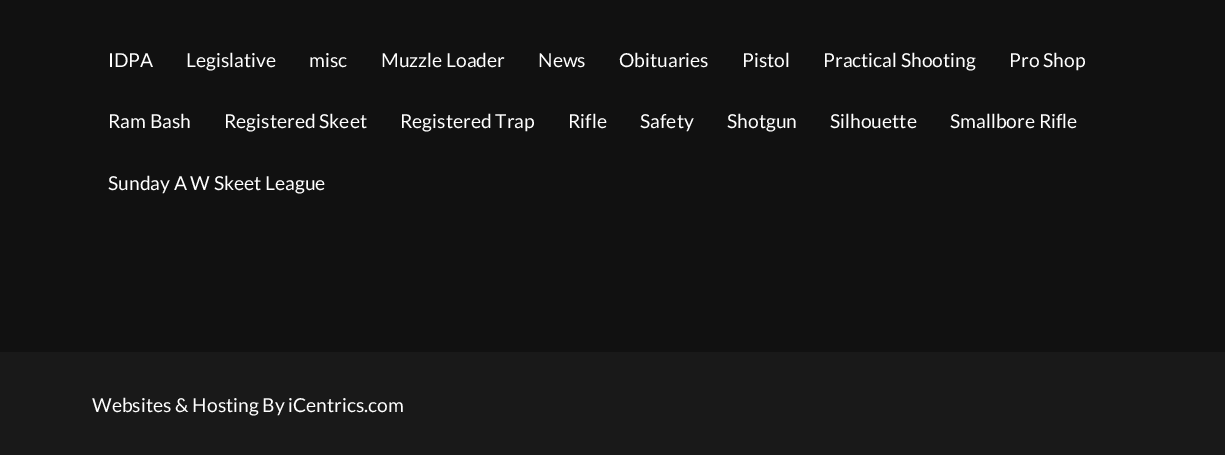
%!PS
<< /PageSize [1225 455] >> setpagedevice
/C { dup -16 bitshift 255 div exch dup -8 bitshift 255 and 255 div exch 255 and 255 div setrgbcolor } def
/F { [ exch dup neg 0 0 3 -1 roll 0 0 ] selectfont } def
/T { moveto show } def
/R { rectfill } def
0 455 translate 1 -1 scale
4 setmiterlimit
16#111111 C
0 0 1225 455 R
/Lato-Regular 19.25 F
16#FFFFFF C
(IDPA) 108 67 T
(Legislative) 186 67 T
(misc) 309 67 T
(Muzzle Loader) 381 67 T
(News) 538 67 T
(Obituaries) 619 67 T
(Pistol) 742 67 T
(Practical Shooting) 823 67 T
(Pro Shop) 1009 67 T
(Ram Bash) 108 128 T
(Registered Skeet) 224 128 T
(Registered Trap) 400 128 T
(Rifle) 568 128 T
(Safety) 640 128 T
(Shotgun) 727 128 T
(Silhouette) 830 128 T
(Smallbore Rifle) 950 128 T
(Sunday A W Skeet League) 108 190 T
16#191919 C
0 352 1225 103 R
16#FFFFFF C
(Websites & Hosting By iCentrics.com) 92 412 T
showpage
